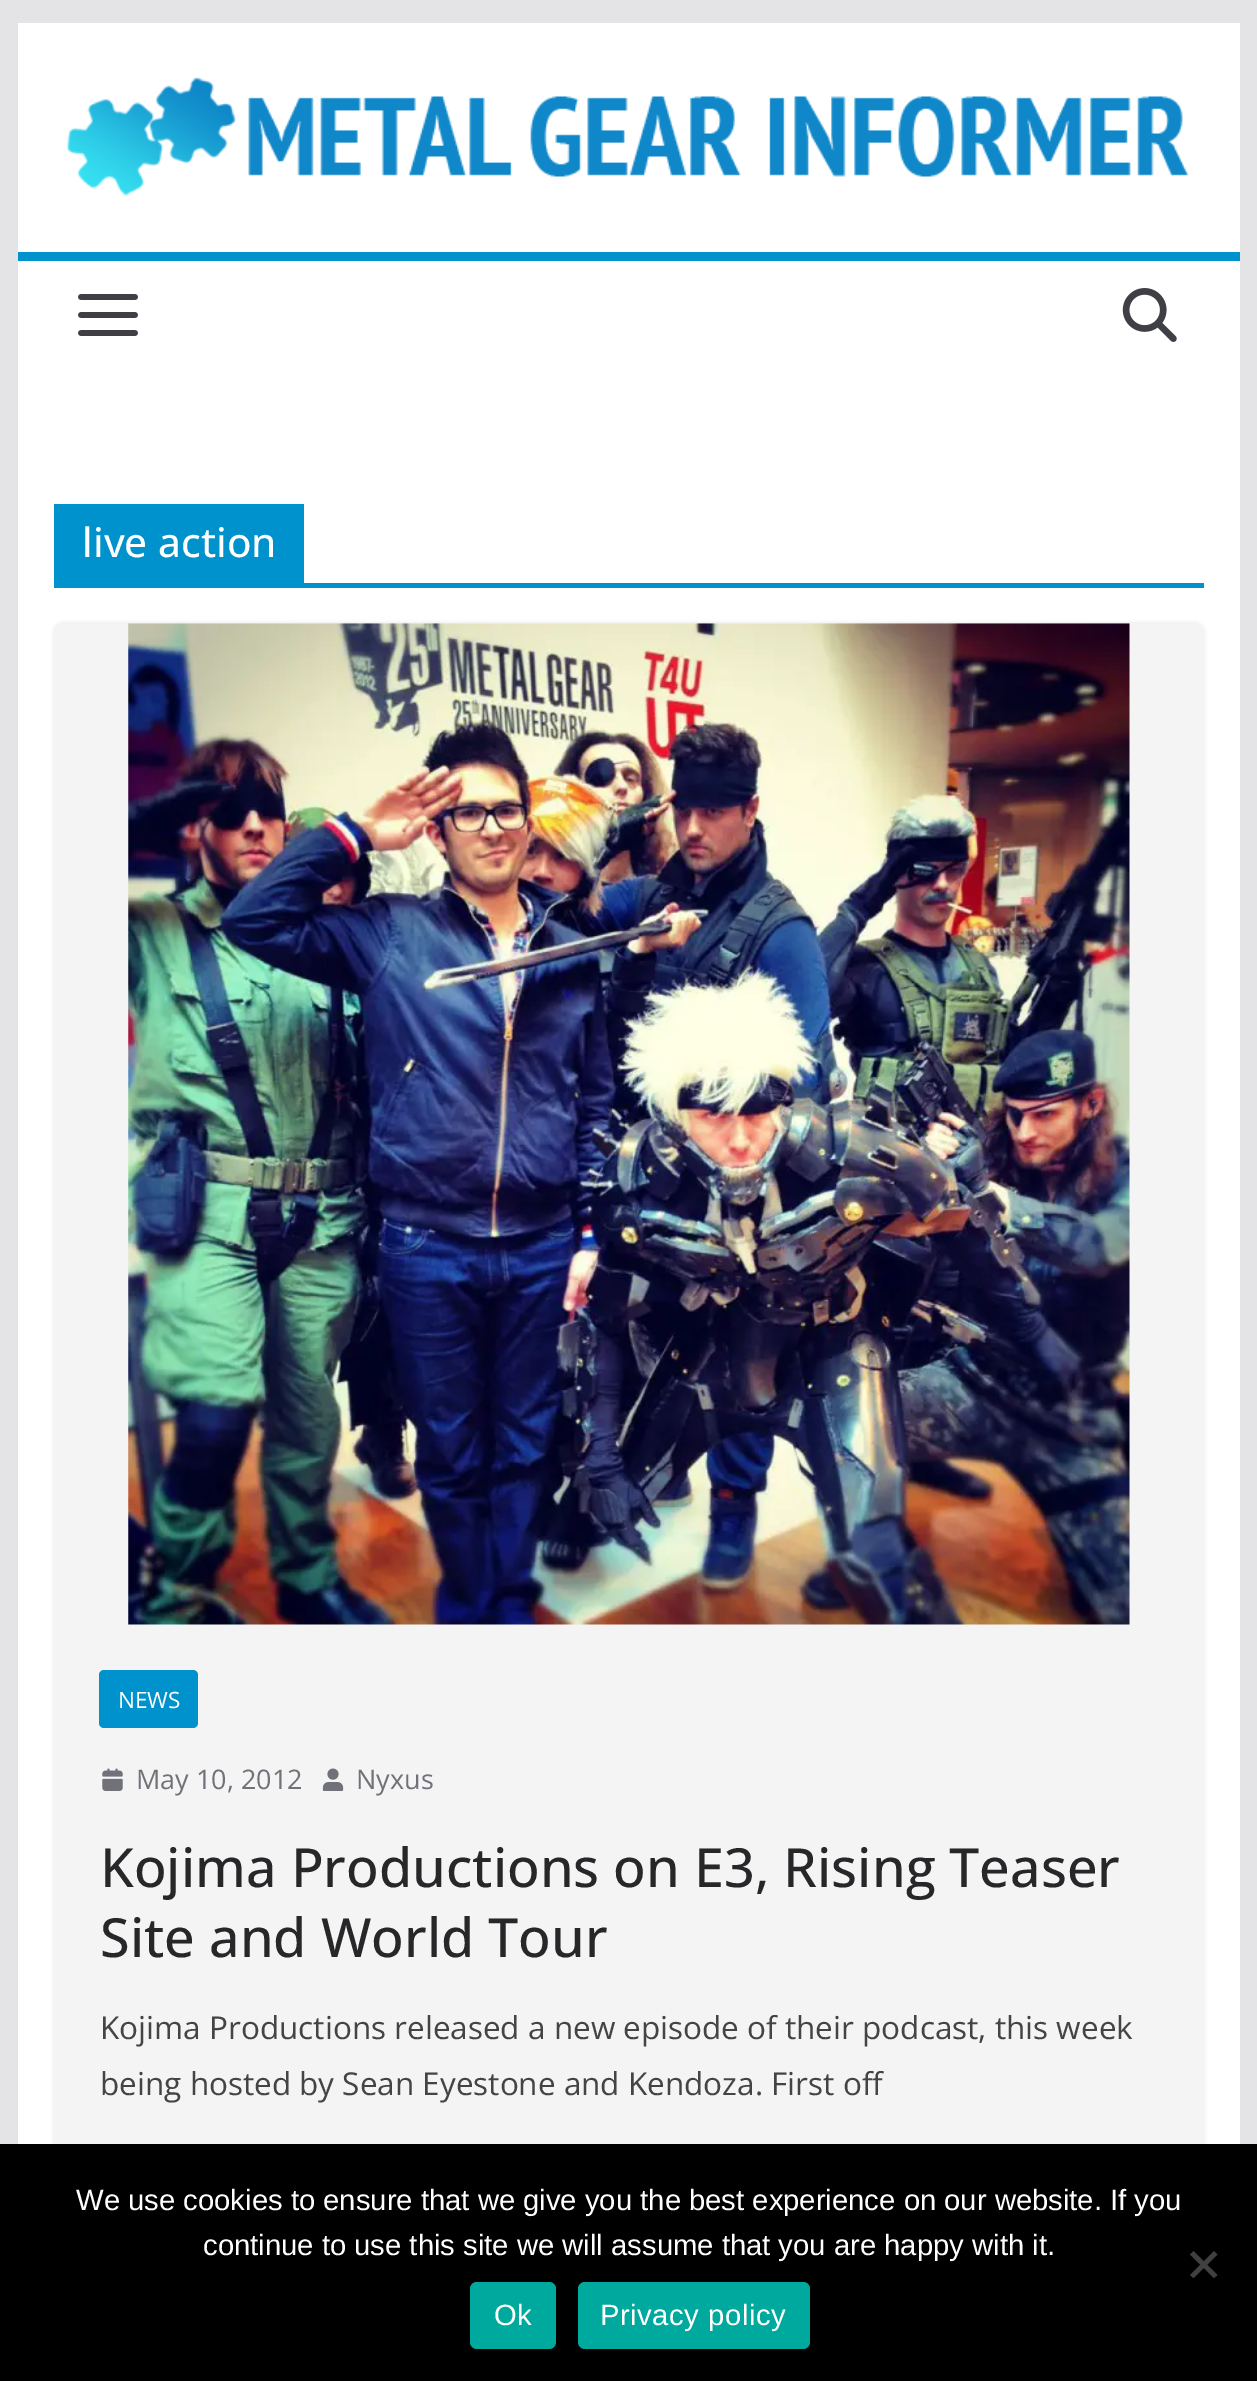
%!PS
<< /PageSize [1257 2381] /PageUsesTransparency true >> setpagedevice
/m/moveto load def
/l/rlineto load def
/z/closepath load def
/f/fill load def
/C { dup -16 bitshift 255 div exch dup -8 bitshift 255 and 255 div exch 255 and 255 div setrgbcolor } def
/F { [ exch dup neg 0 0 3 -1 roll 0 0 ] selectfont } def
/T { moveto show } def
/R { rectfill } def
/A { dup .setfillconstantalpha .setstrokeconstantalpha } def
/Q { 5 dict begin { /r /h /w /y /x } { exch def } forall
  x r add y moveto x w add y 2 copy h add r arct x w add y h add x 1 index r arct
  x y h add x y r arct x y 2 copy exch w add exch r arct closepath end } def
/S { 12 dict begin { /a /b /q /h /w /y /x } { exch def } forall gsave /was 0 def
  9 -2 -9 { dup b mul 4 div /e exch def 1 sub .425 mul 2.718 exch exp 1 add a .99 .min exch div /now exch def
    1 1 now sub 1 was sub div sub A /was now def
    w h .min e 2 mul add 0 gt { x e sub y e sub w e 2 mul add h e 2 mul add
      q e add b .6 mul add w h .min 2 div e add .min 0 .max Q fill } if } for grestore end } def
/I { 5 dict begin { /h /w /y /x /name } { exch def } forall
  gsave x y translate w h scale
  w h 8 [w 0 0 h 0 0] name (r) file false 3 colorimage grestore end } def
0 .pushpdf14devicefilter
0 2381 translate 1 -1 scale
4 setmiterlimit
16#E4E4E7 C
0 0 1257 2381 R
16#FFFFFF C
18 23 1222 2121 R
(1.rgb) 67 77 1122 119 I
16#0092CC C
18 252 1222 9 R
(2.rgb) 78 294 60 42 I
(3.rgb) 1122 288 55 54 I
54 583 1150 5 R
54 504 250 79 R
/OpenSans-Medium 40.5 F
16#FFFFFF C
(live action) 82 557 T
16#E4E4E7 C
54 623 1150 1656 9 2 1 S
16#F5F4F4 C
54 623 1150 1656 9 Q f
(4.rgb) 128 623 1002 1002 I
16#0092CC C
99 1670 99 58 5 Q f
/OpenSans-Regular 22.5 F
16#FFFFFF C
(NEWS) 118 1708 T
(5.rgb) 102 1768 21 23 I
/OpenSans-Regular 27 F
16#71717A C
(May 10, 2012) 136 1789 T
(6.rgb) 322 1768 22 23 I
(Nyxus) 356 1789 T
/OpenSans-Medium 54 F
16#27272A C
(Kojima Productions on E3, Rising Teaser) 100 1887 T
(Site and World Tour) 100 1957 T
/OpenSans-Regular 31.5 F
16#444444 C
(Kojima Productions released a new episode of their podcast, this week) 100 2039 T
(being hosted by Sean Eyestone and Kendoza. First off) 100 2095 T
16#000000 C
0 2144 1257 237 R
/LiberationSans-Regular 29.25 F
16#FFFFFF C
(We use cookies to ensure that we give you the best experience on our website. If you) 76 2210 T
(continue to use this site we will assume that you are happy with it.) 203 2255 T
16#404040 C
1214 2251 m 3.5 3.5 l -24 23.5 l -3.5 -3 l z f
1190 2254.5 m 3.5 -3.5 l 24 24 l -3.5 3 l z f
16#00A99D C
470 2282 86 67 7 Q f
16#FFFFFF C
494 2325 m .5 0 (Ok) ashow
16#00A99D C
578 2282 232 67 7 Q f
16#FFFFFF C
600 2325 m .5 0 (Privacy policy) ashow
.poppdf14devicefilter showpage
